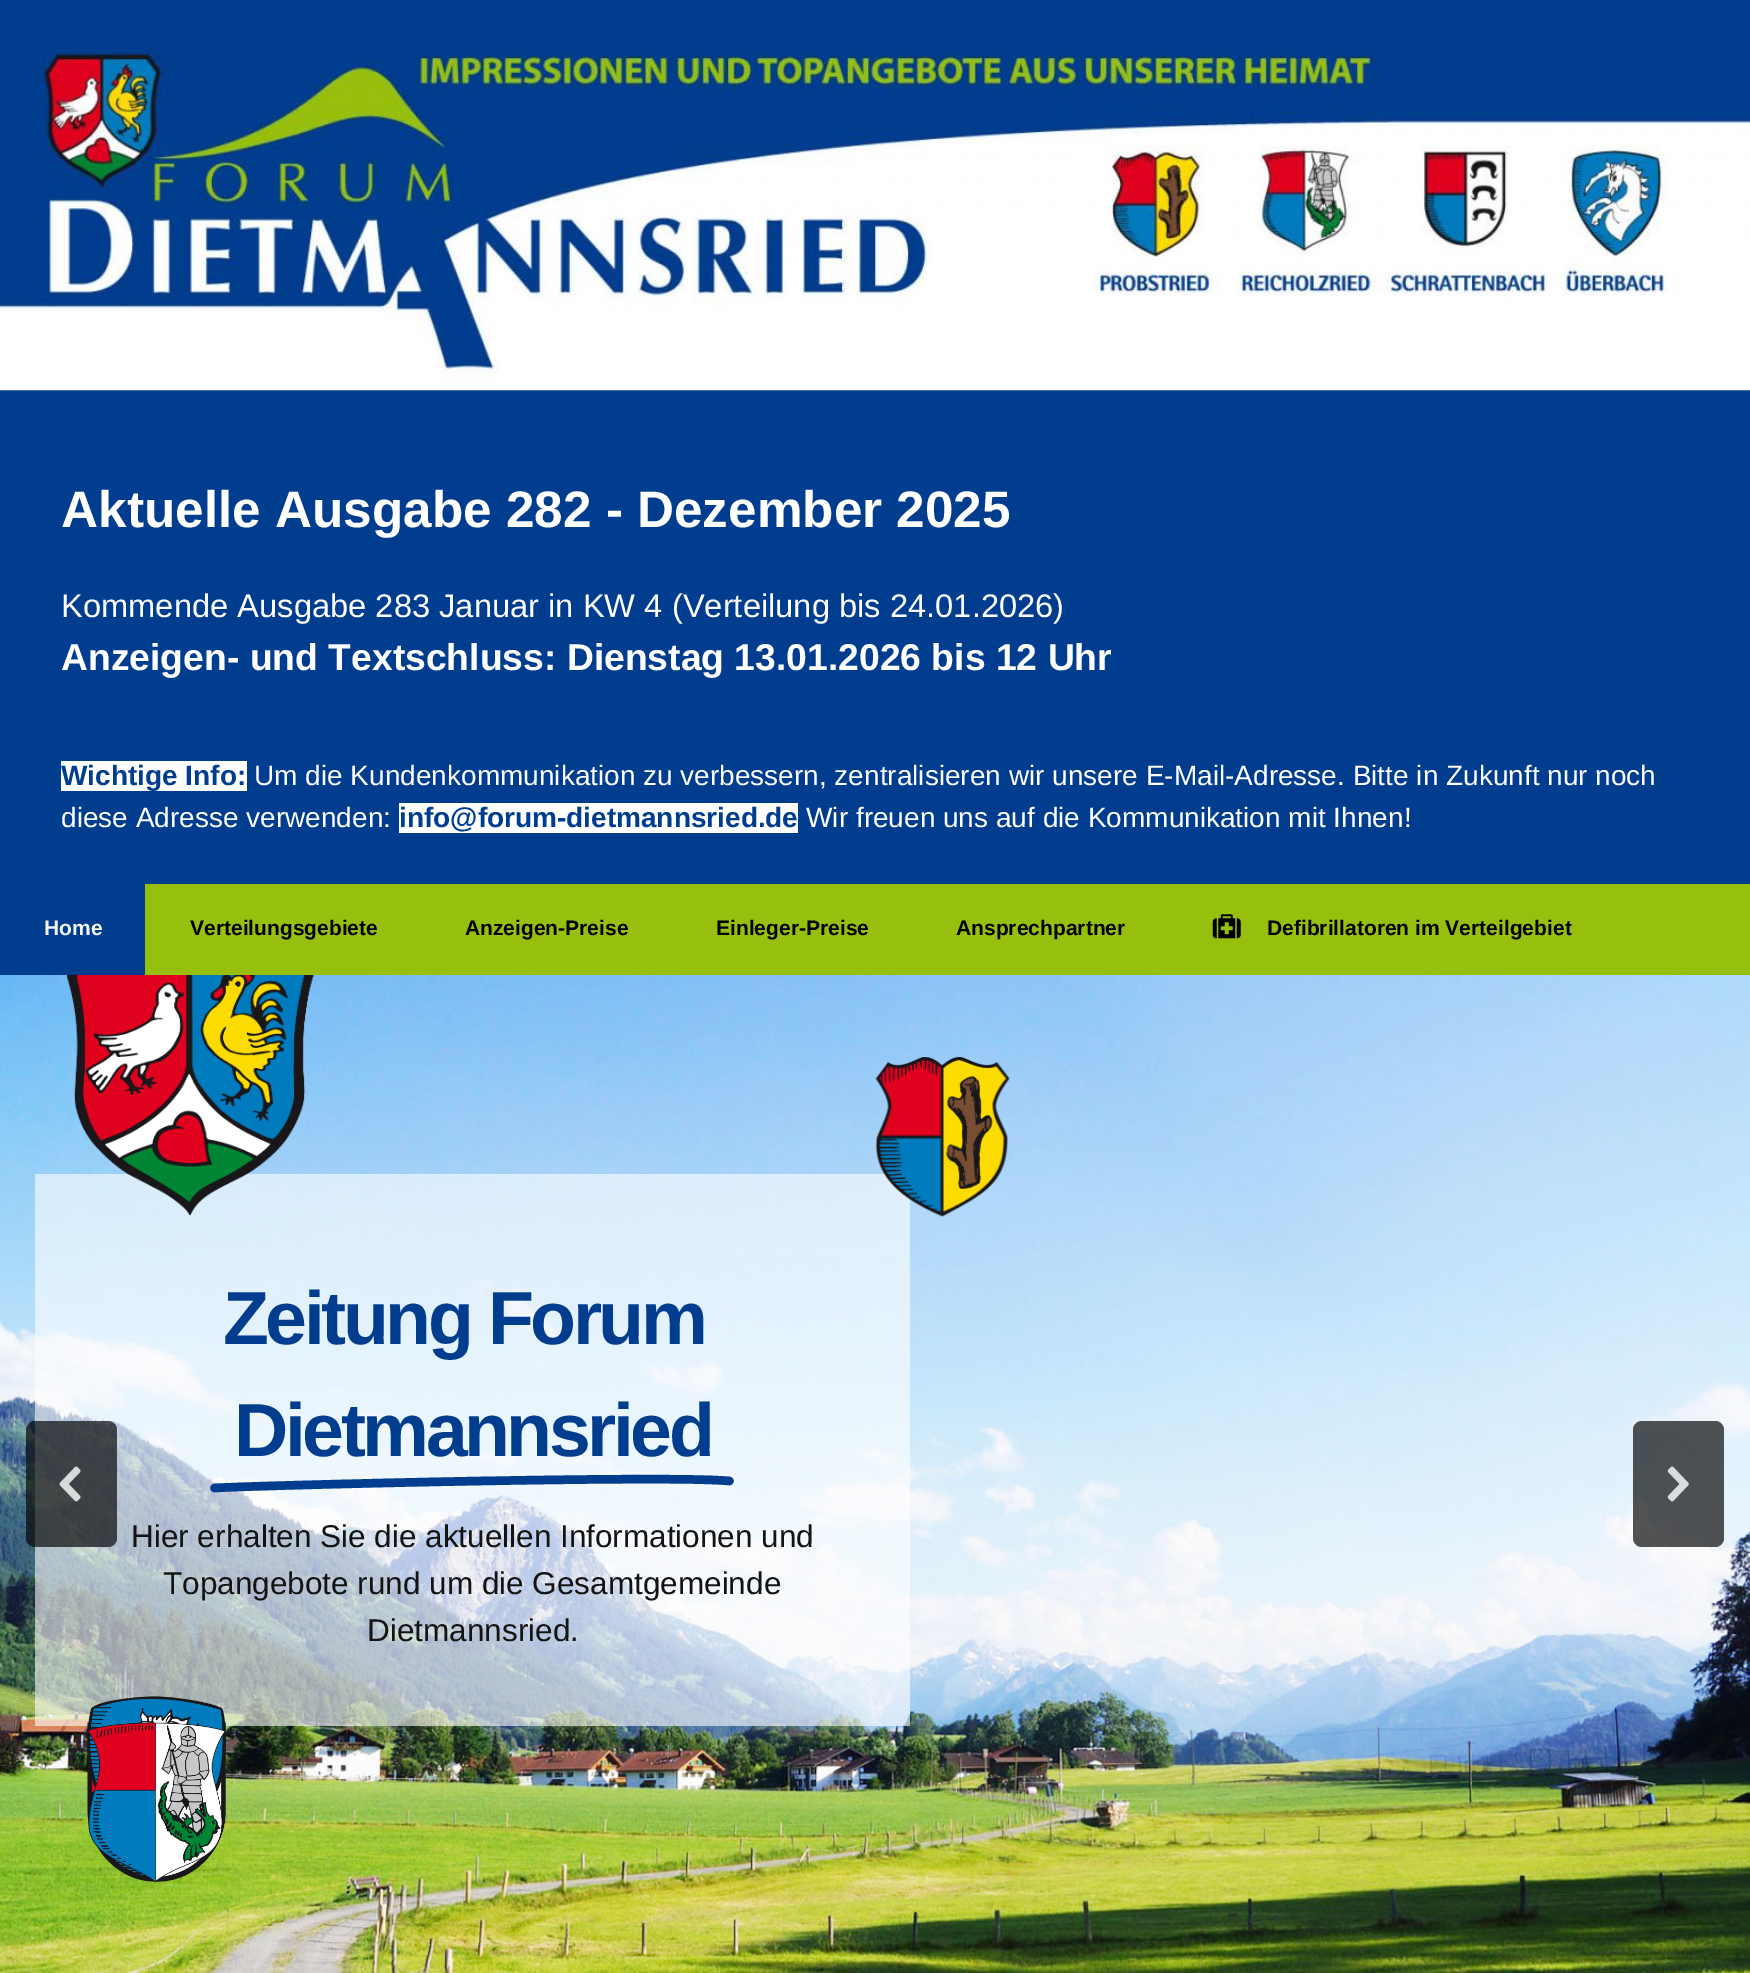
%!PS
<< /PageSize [1750 1973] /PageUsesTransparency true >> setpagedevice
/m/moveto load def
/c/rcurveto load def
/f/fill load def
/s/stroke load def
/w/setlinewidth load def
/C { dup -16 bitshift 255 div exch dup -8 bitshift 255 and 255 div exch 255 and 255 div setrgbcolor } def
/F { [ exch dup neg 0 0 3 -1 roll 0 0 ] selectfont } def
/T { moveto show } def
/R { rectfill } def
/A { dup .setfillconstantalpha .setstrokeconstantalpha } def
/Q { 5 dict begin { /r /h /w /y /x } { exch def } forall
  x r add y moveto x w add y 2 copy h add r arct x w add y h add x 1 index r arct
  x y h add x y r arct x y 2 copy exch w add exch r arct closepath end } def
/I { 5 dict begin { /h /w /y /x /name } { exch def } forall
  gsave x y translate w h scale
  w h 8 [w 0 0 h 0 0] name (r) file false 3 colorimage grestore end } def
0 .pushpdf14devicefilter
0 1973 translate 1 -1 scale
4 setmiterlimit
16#003D8F C
0 0 1750 1973 R
(1.rgb) 0 52 1750 339 I
/LiberationSans-Bold 51.3 F
16#FFFFFF C
(Aktuelle Ausgabe 282 - Dezember 2025) 61 527 T
/LiberationSans-Regular 32.7 F
(Kommende Ausgabe 283 Januar in KW 4 \(Verteilung bis 24.01.2026\)) 61 617 T
/LiberationSans-Bold 37.3 F
(Anzeigen- und Textschluss: Dienstag 13.01.2026 bis 12 Uhr) 61 670 T
61 761 186 30 R
/LiberationSans-Bold 28 F
16#003D8F C
(Wichtige Info:) 61 785 T
/LiberationSans-Regular 28 F
16#FFFFFF C
(Um die Kundenkommunikation zu verbessern, zentralisieren wir unsere E-Mail-Adresse. Bitte in Zukunft nur noch) 254 785 T
(diese Adresse verwenden:) 61 827 T
399 803 399 30 R
/LiberationSans-Bold 28 F
16#003D8F C
(info@forum-dietmannsried.de) 399 827 T
/LiberationSans-Regular 28 F
16#FFFFFF C
(Wir freuen uns auf die Kommunikation mit Ihnen!) 806 827 T
16#97BF0D C
145 884 1605 91 R
/LiberationSans-Bold 21 F
16#F4F4F4 C
(Home) 44 935 T
16#000000 C
(Verteilungsgebiete) 190 935 T
(Anzeigen-Preise) 465 935 T
(Einleger-Preise) 716 935 T
(Ansprechpartner) 956 935 T
(2.rgb) 1212 914 29 25 I
(Defibrillatoren im Verteilgebiet) 1267 935 T
(4.rgb) 0 975 1750 998 I
0.6 A
16#FFFFFF C
35 1174 875 552 R
0.67 A
16#000000 C
26 1421 91 126 9 Q f
1 A
(3.rgb) 59 1466 22 36 I
(5.rgb) 67 975 247 240 I
(6.rgb) 875 1057 135 160 I
/LiberationSans-Bold 75.25 F
16#003D8F C
223 1344 m -3.5 0 (Zeitung Forum) ashow
234 1456 m -3.5 0 (Dietmannsried) ashow
8.5 w
1 setlinecap
1 setlinejoin
214.5 1488 m 38 -2.5 455 -13 515 -7 c s
/LiberationSans-Regular 31.5 F
16#131313 C
(Hier erhalten Sie die aktuellen Informationen und) 131 1547 T
(Topangebote rund um die Gesamtgemeinde) 163 1594 T
(Dietmannsried.) 367 1641 T
(10.rgb) 88 1730 138 152 I
(8.rgb) 87 1722 139 160 I
(7.rgb) 87 1696 139 119 I
(9.rgb) 88 1722 137 160 I
0.67 A
16#000000 C
1633 1421 91 126 9 Q f
1 A
(11.rgb) 1667 1466 22 36 I
.poppdf14devicefilter showpage
